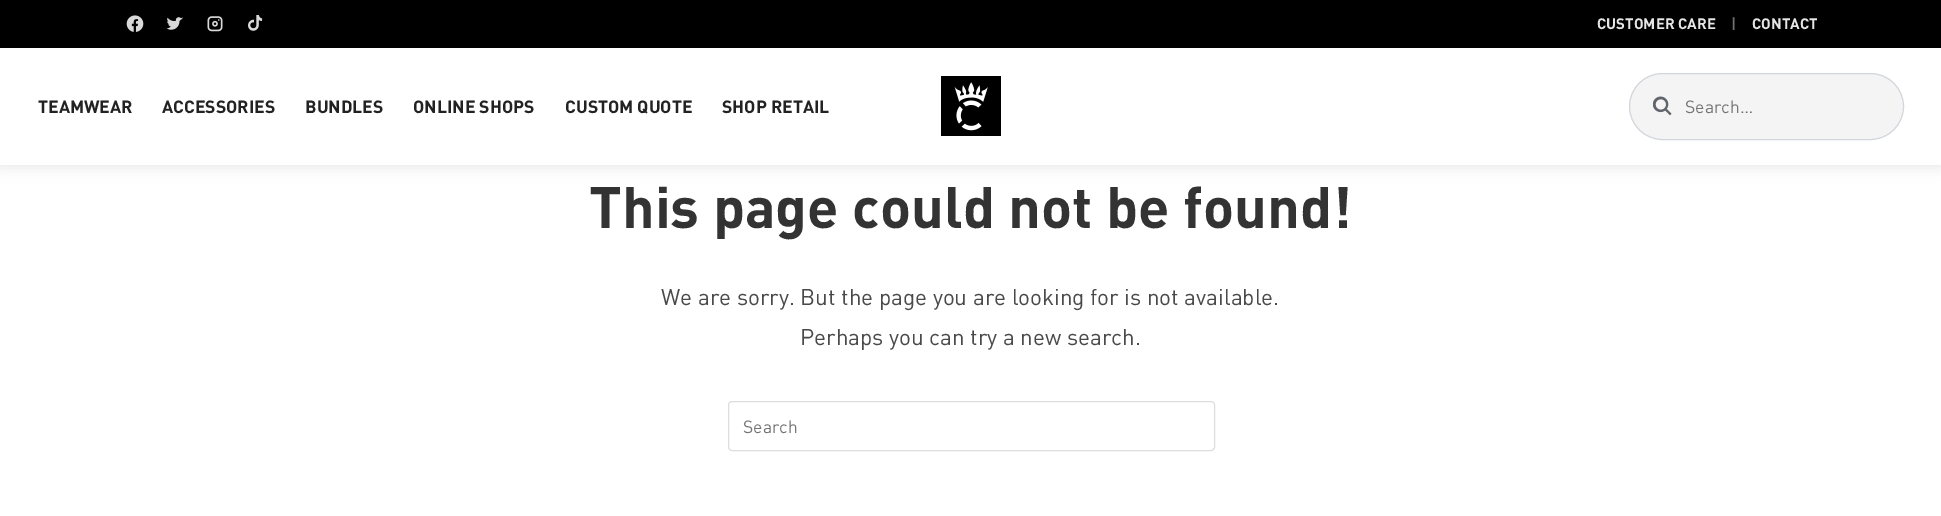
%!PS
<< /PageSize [1941 516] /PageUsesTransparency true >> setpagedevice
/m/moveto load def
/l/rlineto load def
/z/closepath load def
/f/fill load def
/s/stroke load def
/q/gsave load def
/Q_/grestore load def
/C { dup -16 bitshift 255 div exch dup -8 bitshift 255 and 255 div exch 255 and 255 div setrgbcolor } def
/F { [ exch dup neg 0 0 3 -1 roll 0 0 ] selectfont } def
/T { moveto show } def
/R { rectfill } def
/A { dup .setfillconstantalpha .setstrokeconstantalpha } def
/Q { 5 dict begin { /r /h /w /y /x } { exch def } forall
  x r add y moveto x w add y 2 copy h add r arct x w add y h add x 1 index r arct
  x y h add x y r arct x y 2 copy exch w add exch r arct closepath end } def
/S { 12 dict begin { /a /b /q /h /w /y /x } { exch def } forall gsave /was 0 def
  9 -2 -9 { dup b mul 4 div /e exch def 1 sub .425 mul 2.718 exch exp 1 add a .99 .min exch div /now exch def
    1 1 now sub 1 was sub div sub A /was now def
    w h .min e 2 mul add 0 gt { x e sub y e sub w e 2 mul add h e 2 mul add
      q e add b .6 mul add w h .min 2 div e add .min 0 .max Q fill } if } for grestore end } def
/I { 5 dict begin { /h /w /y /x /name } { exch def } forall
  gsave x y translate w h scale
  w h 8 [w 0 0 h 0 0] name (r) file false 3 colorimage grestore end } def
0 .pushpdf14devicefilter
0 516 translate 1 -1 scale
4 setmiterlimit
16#FFFFFF C
0 0 1941 516 R
16#000000 C
0 0 1941 48 R
(1.rgb) 126 15 18 17 I
(2.rgb) 166 17 17 13 I
(3.rgb) 207 16 16 16 I
(4.rgb) 248 15 15 16 I
/DIN-Bold 15 F
16#E6E6E6 C
(CUSTOMER CARE) 1597 29 T
16#6F6F6F C
1731 29 m 1 0 (|) ashow
16#E6E6E6 C
(CONTACT) 1752 29 T
q
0 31 m 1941 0 l 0 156 l -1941 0 l z 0 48 m 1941 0 l 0 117 l -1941 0 l z eoclip newpath
16#000000 C
0 50 1941 118 0 6 .08 S
Q_
/DIN-Bold 17.5 F
16#222222 C
(TEAMWEAR) 38 113 T
(ACCESSORIES) 162 113 T
(BUNDLES) 305 113 T
(ONLINE SHOPS) 413 113 T
(CUSTOM QUOTE) 565 113 T
(SHOP RETAIL) 722 113 T
(5.rgb) 941 76 60 60 I
16#F4F4F4 C
1629.5 73.5 274 66 33 Q q f Q_
16#D2D6DB C
s
(6.rgb) 1653 96 19 20 I
/DIN-Regular 17.5 F
16#757575 C
(Search…) 1685 113 T
/DIN-Bold 57.5 F
16#333333 C
(This page could not be found!) 589 228 T
/DIN-Regular 22.5 F
16#4A4A4A C
(We are sorry. But the page you are looking for is not available.) 661 305 T
(Perhaps you can try a new search.) 800 345 T
16#DDDDDD C
728.5 401.5 486 49 3.5 Q s
/DIN-Regular 17.5 F
16#757575 C
(Search) 743 433 T
.poppdf14devicefilter showpage
